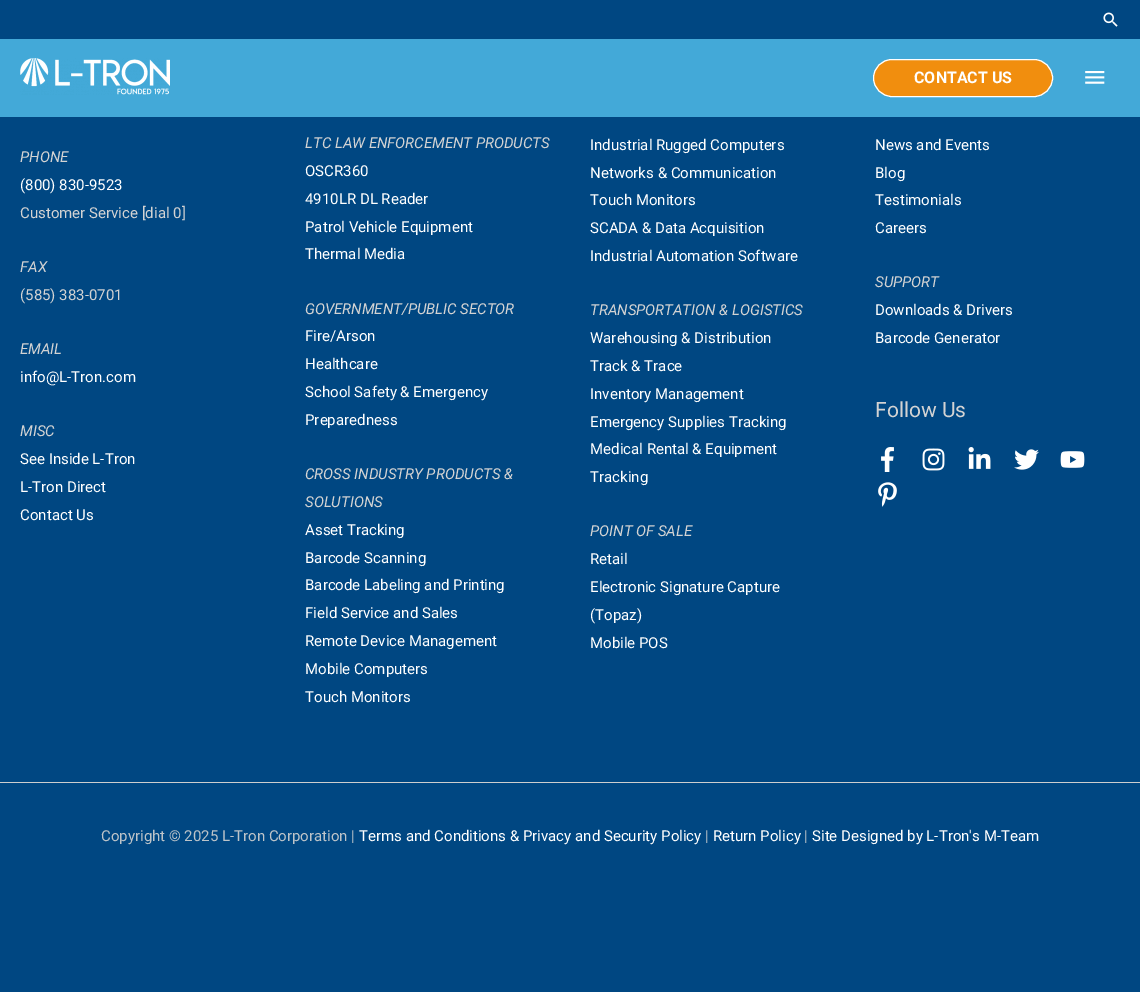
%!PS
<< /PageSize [1140 992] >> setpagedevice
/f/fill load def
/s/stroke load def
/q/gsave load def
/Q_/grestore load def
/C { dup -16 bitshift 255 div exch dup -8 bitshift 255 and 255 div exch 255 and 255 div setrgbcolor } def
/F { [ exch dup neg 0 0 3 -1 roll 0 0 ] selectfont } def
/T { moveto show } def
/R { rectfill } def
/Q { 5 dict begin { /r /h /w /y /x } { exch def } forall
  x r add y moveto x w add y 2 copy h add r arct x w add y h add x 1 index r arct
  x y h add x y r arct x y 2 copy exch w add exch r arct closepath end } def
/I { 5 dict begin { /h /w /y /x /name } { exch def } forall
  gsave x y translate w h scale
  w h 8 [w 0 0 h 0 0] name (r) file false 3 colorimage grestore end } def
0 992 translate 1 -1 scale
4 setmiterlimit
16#004782 C
0 0 1140 992 R
(1.rgb) 1103 12 15 15 I
16#43A9D8 C
0 39 1140 78 R
(2.rgb) 20 58 150 37 I
16#F18E0E C
873.5 59.5 179 37 18.5 Q q f Q_
16#FFFFFF C
s
/Roboto-Bold 16 F
(CONTACT US) 914 83 T
(3.rgb) 1085 71 20 13 I
/Roboto-Italic 15 F
16#D3D3D3 C
(PHONE) 20 162 T
/Roboto-Regular 15 F
16#FFFFFF C
(\(800\) 830-9523) 20 190 T
16#D3D3D3 C
(Customer Service [dial 0]) 20 218 T
/Roboto-Italic 15 F
(FAX) 20 272 T
/Roboto-Regular 15 F
(\(585\) 383-0701) 20 300 T
/Roboto-Italic 15 F
(EMAIL) 20 354 T
/Roboto-Regular 15 F
16#FFFFFF C
(info@L-Tron.com) 20 382 T
/Roboto-Italic 15 F
16#D3D3D3 C
(MISC) 20 436 T
/Roboto-Regular 15 F
16#FFFFFF C
(See Inside L-Tron) 20 464 T
(L-Tron Direct) 20 492 T
(Contact Us) 20 520 T
/Roboto-Italic 15 F
16#D3D3D3 C
(LTC LAW ENFORCEMENT PRODUCTS) 305 148 T
/Roboto-Regular 15 F
16#FFFFFF C
(OSCR360) 305 176 T
(4910LR DL Reader) 305 204 T
(Patrol Vehicle Equipment) 305 232 T
(Thermal Media) 305 259 T
/Roboto-Italic 15 F
16#D3D3D3 C
(GOVERNMENT/PUBLIC SECTOR) 305 314 T
/Roboto-Regular 15 F
16#FFFFFF C
(Fire/Arson) 305 341 T
(Healthcare) 305 369 T
(School Safety & Emergency) 305 397 T
(Preparedness) 305 425 T
/Roboto-Italic 15 F
16#D3D3D3 C
(CROSS INDUSTRY PRODUCTS &) 305 479 T
(SOLUTIONS) 305 507 T
/Roboto-Regular 15 F
16#FFFFFF C
(Asset Tracking) 305 535 T
(Barcode Scanning) 305 563 T
(Barcode Labeling and Printing) 305 590 T
(Field Service and Sales) 305 618 T
(Remote Device Management) 305 646 T
(Mobile Computers) 305 674 T
(Touch Monitors) 305 702 T
(Industrial Rugged Computers) 590 150 T
(Networks & Communication) 590 178 T
(Touch Monitors) 590 205 T
(SCADA & Data Acquisition) 590 233 T
(Industrial Automation Software) 590 261 T
/Roboto-Italic 15 F
16#D3D3D3 C
(TRANSPORTATION & LOGISTICS) 590 315 T
/Roboto-Regular 15 F
16#FFFFFF C
(Warehousing & Distribution) 590 343 T
(Track & Trace) 590 371 T
(Inventory Management) 590 399 T
(Emergency Supplies Tracking) 590 427 T
(Medical Rental & Equipment) 590 454 T
(Tracking) 590 482 T
/Roboto-Italic 15 F
16#D3D3D3 C
(POINT OF SALE) 590 536 T
/Roboto-Regular 15 F
16#FFFFFF C
(Retail) 590 564 T
(Electronic Signature Capture) 590 592 T
(\(Topaz\)) 590 620 T
(Mobile POS) 590 648 T
(News and Events) 875 150 T
(Blog) 875 178 T
(Testimonials) 875 205 T
(Careers) 875 233 T
/Roboto-Italic 15 F
16#D3D3D3 C
(SUPPORT) 875 287 T
/Roboto-Regular 15 F
16#FFFFFF C
(Downloads & Drivers) 875 315 T
(Barcode Generator) 875 343 T
/Roboto-Regular 21 F
16#D3D3D3 C
(Follow Us) 875 417 T
(4.rgb) 881 447 13 25 I
(5.rgb) 922 448 23 23 I
(6.rgb) 968 447 23 22 I
(7.rgb) 1014 449 25 21 I
(8.rgb) 1060 451 25 17 I
(9.rgb) 878 482 19 25 I
16#CECECE C
0 782 1140 1 R
/Roboto-Regular 15 F
16#BDC4C9 C
(Copyright © 2025 L-Tron Corporation |) 101 841 T
16#FFFFFF C
(Terms and Conditions & Privacy and Security Policy) 359 841 T
16#BDC4C9 C
(|) 705 841 T
16#FFFFFF C
(Return Policy) 713 841 T
16#BDC4C9 C
(|) 804 841 T
16#FFFFFF C
(Site Designed by L-Tron's M-Team) 812 841 T
showpage
